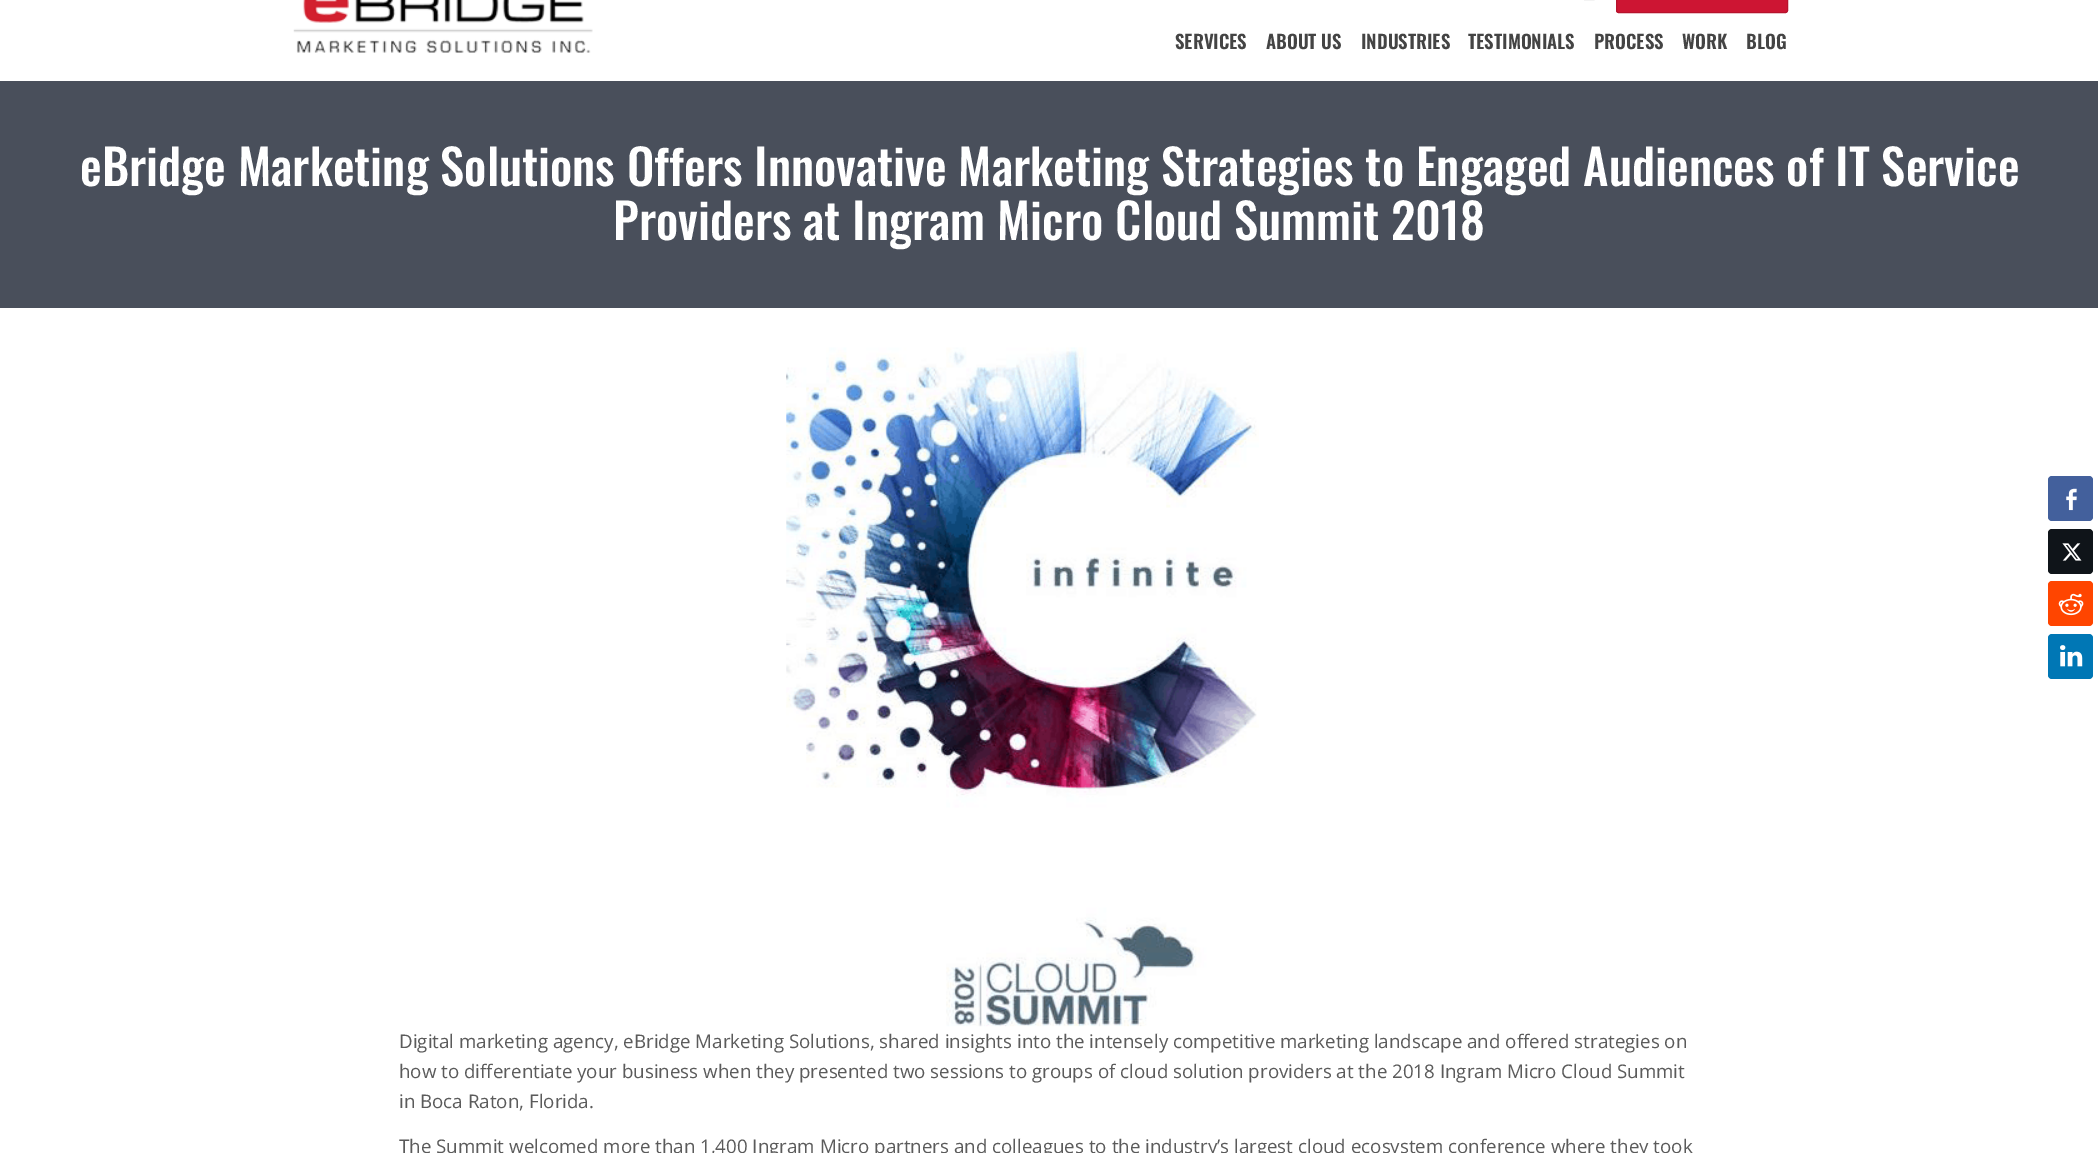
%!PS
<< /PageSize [2098 1153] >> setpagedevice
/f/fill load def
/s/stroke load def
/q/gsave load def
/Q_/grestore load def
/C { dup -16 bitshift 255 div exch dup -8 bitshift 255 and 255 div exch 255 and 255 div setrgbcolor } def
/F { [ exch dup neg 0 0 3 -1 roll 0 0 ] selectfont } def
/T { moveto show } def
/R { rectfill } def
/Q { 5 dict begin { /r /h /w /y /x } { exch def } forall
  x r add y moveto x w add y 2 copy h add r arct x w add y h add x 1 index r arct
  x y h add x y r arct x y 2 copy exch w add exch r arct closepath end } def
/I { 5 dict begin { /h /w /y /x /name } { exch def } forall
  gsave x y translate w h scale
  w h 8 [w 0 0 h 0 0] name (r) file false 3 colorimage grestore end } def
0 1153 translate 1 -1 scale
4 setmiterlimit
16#FFFFFF C
0 0 2098 1153 R
(1.rgb) 1584 0 11 1 I
16#CD1533 C
1616.5 -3.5 171 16 2 Q q f Q_
16#B6132D C
s
(2.rgb) 293 0 300 53 I
/Oswald-SemiBold 18.75 F
16#444444 C
(SERVICES) 1175 49 T
(ABOUT US) 1266 49 T
(INDUSTRIES) 1361 49 T
(TESTIMONIALS) 1468 49 T
(PROCESS) 1594 49 T
(WORK) 1682 49 T
(BLOG) 1746 49 T
16#494F5B C
0 81 2098 227 R
/Oswald-Medium 48.75 F
16#FFFFFF C
(eBridge Marketing Solutions Offers Innovative Marketing Strategies to Engaged Audiences of IT Service) 80 186 T
(Providers at Ingram Micro Cloud Summit 2018) 613 240 T
(3.rgb) 786 347 473 680 I
/OpenSans-Regular 18.75 F
16#5B5B5B C
(Digital marketing agency, eBridge Marketing Solutions, shared insights into the intensely competitive marketing landscape and offered strategies on) 399 1048 T
(how to differentiate your business when they presented two sessions to groups of cloud solution providers at the 2018 Ingram Micro Cloud Summit) 399 1078 T
(in Boca Raton, Florida.) 399 1108 T
(The Summit welcomed more than 1,400 Ingram Micro partners and colleagues to the industry’s largest cloud ecosystem conference where they took) 399 1153 T
16#43609C C
2048 476 45 45 4 Q f
(4.rgb) 2066 488 11 23 I
16#0F1419 C
2048 529 45 45 4 Q f
(5.rgb) 2062 543 20 18 I
16#FF4500 C
2048 581 45 45 4 Q f
(6.rgb) 2058 593 26 23 I
16#0077B5 C
2048 634 45 45 4 Q f
(7.rgb) 2060 645 23 22 I
showpage
